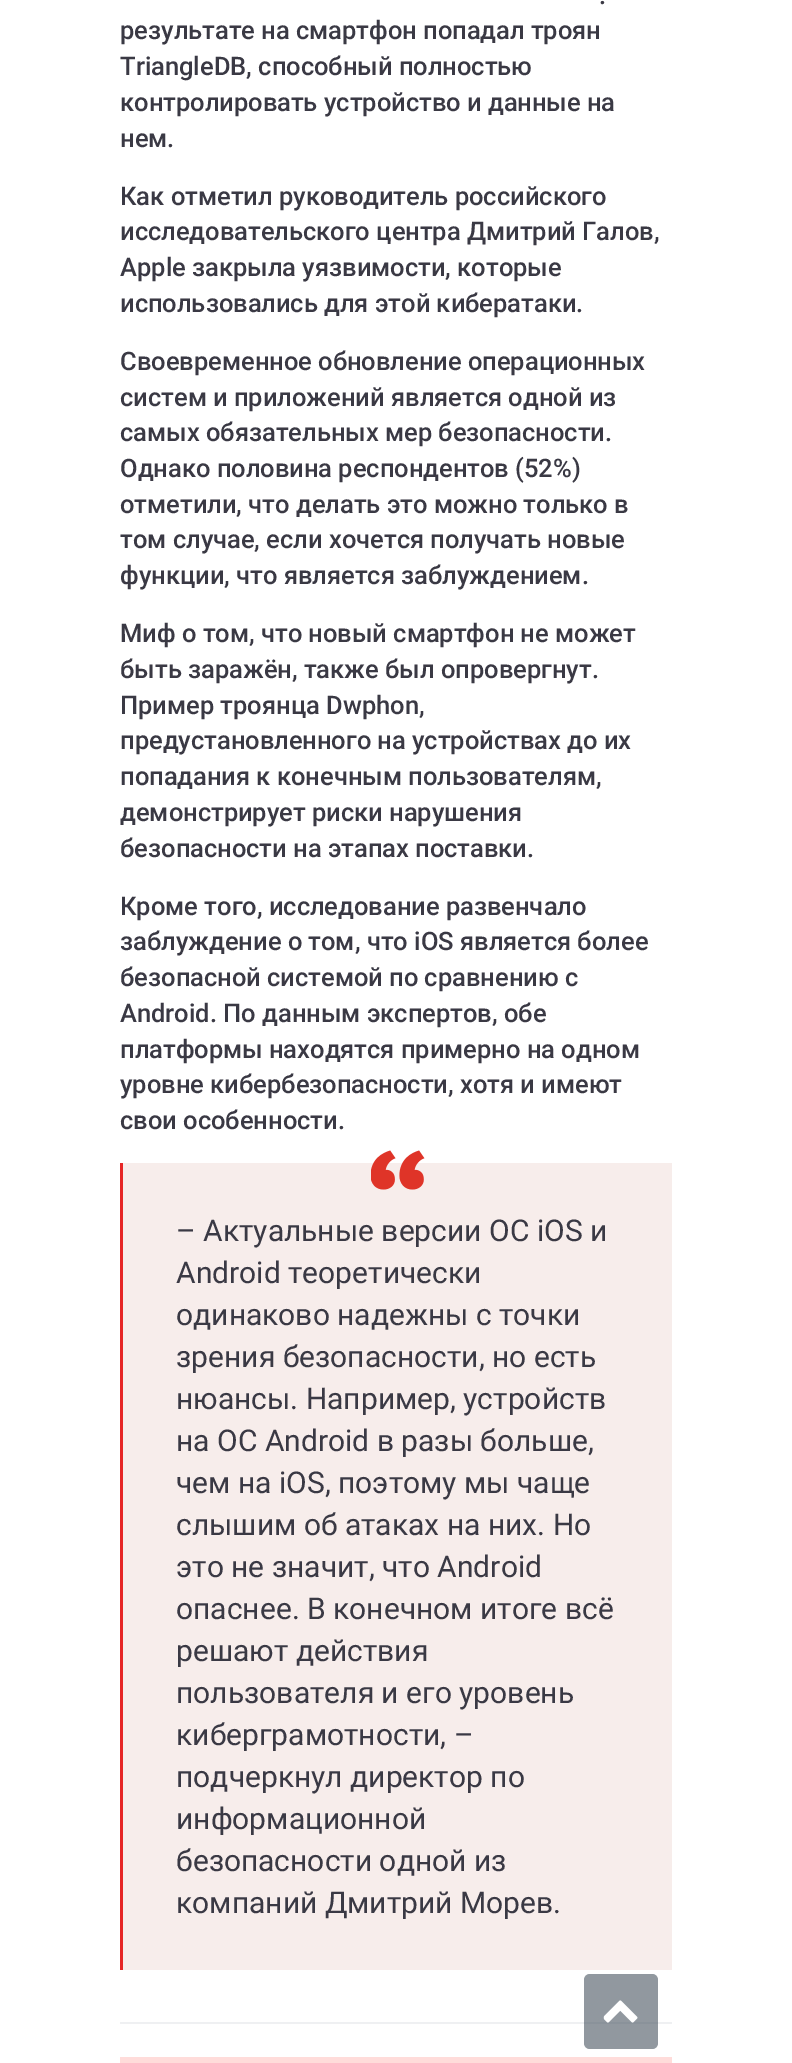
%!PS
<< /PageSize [792 2063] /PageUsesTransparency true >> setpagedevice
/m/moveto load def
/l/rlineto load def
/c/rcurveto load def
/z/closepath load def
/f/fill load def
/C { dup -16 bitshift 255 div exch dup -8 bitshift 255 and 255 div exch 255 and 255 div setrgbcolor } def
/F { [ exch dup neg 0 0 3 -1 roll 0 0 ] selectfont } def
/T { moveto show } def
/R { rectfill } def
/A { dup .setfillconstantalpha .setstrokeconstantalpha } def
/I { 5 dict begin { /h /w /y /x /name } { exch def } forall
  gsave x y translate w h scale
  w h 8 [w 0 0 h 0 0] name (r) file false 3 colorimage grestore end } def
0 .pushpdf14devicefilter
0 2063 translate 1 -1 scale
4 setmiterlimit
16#FFFFFF C
0 0 792 2063 R
16#EFF0F2 C
120 2022 552 2 R
/Roboto-Medium 25.5 F
16#3A3944 C
(.) 599 4 T
(результате на смартфон попадал троян) 120 39 T
(TriangleDB, способный полностью) 120 75 T
(контролировать устройство и данные на) 120 111 T
(нем.) 120 147 T
(Как отметил руководитель российского) 120 205 T
(исследовательского центра Дмитрий Галов,) 120 240 T
(Apple закрыла уязвимости, которые) 120 276 T
(использовались для этой кибератаки.) 120 312 T
(Своевременное обновление операционных) 120 370 T
(систем и приложений является одной из) 120 406 T
(самых обязательных мер безопасности.) 120 441 T
(Однако половина респондентов \(52%\)) 120 477 T
(отметили, что делать это можно только в) 120 513 T
(том случае, если хочется получать новые) 120 548 T
(функции, что является заблуждением.) 120 584 T
(Миф о том, что новый смартфон не может) 120 642 T
(быть заражён, также был опровергнут.) 120 678 T
(Пример троянца Dwphon,) 120 714 T
(предустановленного на устройствах до их) 120 749 T
(попадания к конечным пользователям,) 120 785 T
(демонстрирует риски нарушения) 120 821 T
(безопасности на этапах поставки.) 120 857 T
(Кроме того, исследование развенчало) 120 915 T
(заблуждение о том, что iOS является более) 120 950 T
(безопасной системой по сравнению с) 120 986 T
(Android. По данным экспертов, обе) 120 1022 T
(платформы находятся примерно на одном) 120 1058 T
(уровне кибербезопасности, хотя и имеют) 120 1093 T
(свои особенности.) 120 1129 T
16#F7EDEB C
123 1163 549 807 R
16#E62626 C
120 1163 3 807 R
(1.rgb) 371 1150 54 40 I
/Roboto-Regular 30 F
16#3A3944 C
(– Актуальные версии ОС iOS и) 176 1241 T
(Android теоретически) 176 1283 T
(одинаково надежны с точки) 176 1325 T
(зрения безопасности, но есть) 176 1367 T
(нюансы. Например, устройств) 176 1409 T
(на ОС Android в разы больше,) 176 1451 T
(чем на iOS, поэтому мы чаще) 176 1493 T
(слышим об атаках на них. Но) 176 1535 T
(это не значит, что Android) 176 1577 T
(опаснее. В конечном итоге всё) 176 1619 T
(решают действия) 176 1661 T
(пользователя и его уровень) 176 1703 T
(киберграмотности, –) 176 1745 T
(подчеркнул директор по) 176 1787 T
(информационной) 176 1829 T
(безопасности одной из) 176 1871 T
(компаний Дмитрий Морев.) 176 1913 T
16#FFDCDA C
120 2057 552 6 R
0.6 A
16#47535F C
658 1980 m 0 63 l 0 3 -2 6 -6 6 c -62 0 l -4 0 -6 -3 -6 -6 c 0 -63 l 0 -3 2 -6 6 -6 c 62 0 l 4 0 6 3 6 6 c z f
1 A
(2.rgb) 603 2000 35 23 I
.poppdf14devicefilter showpage
